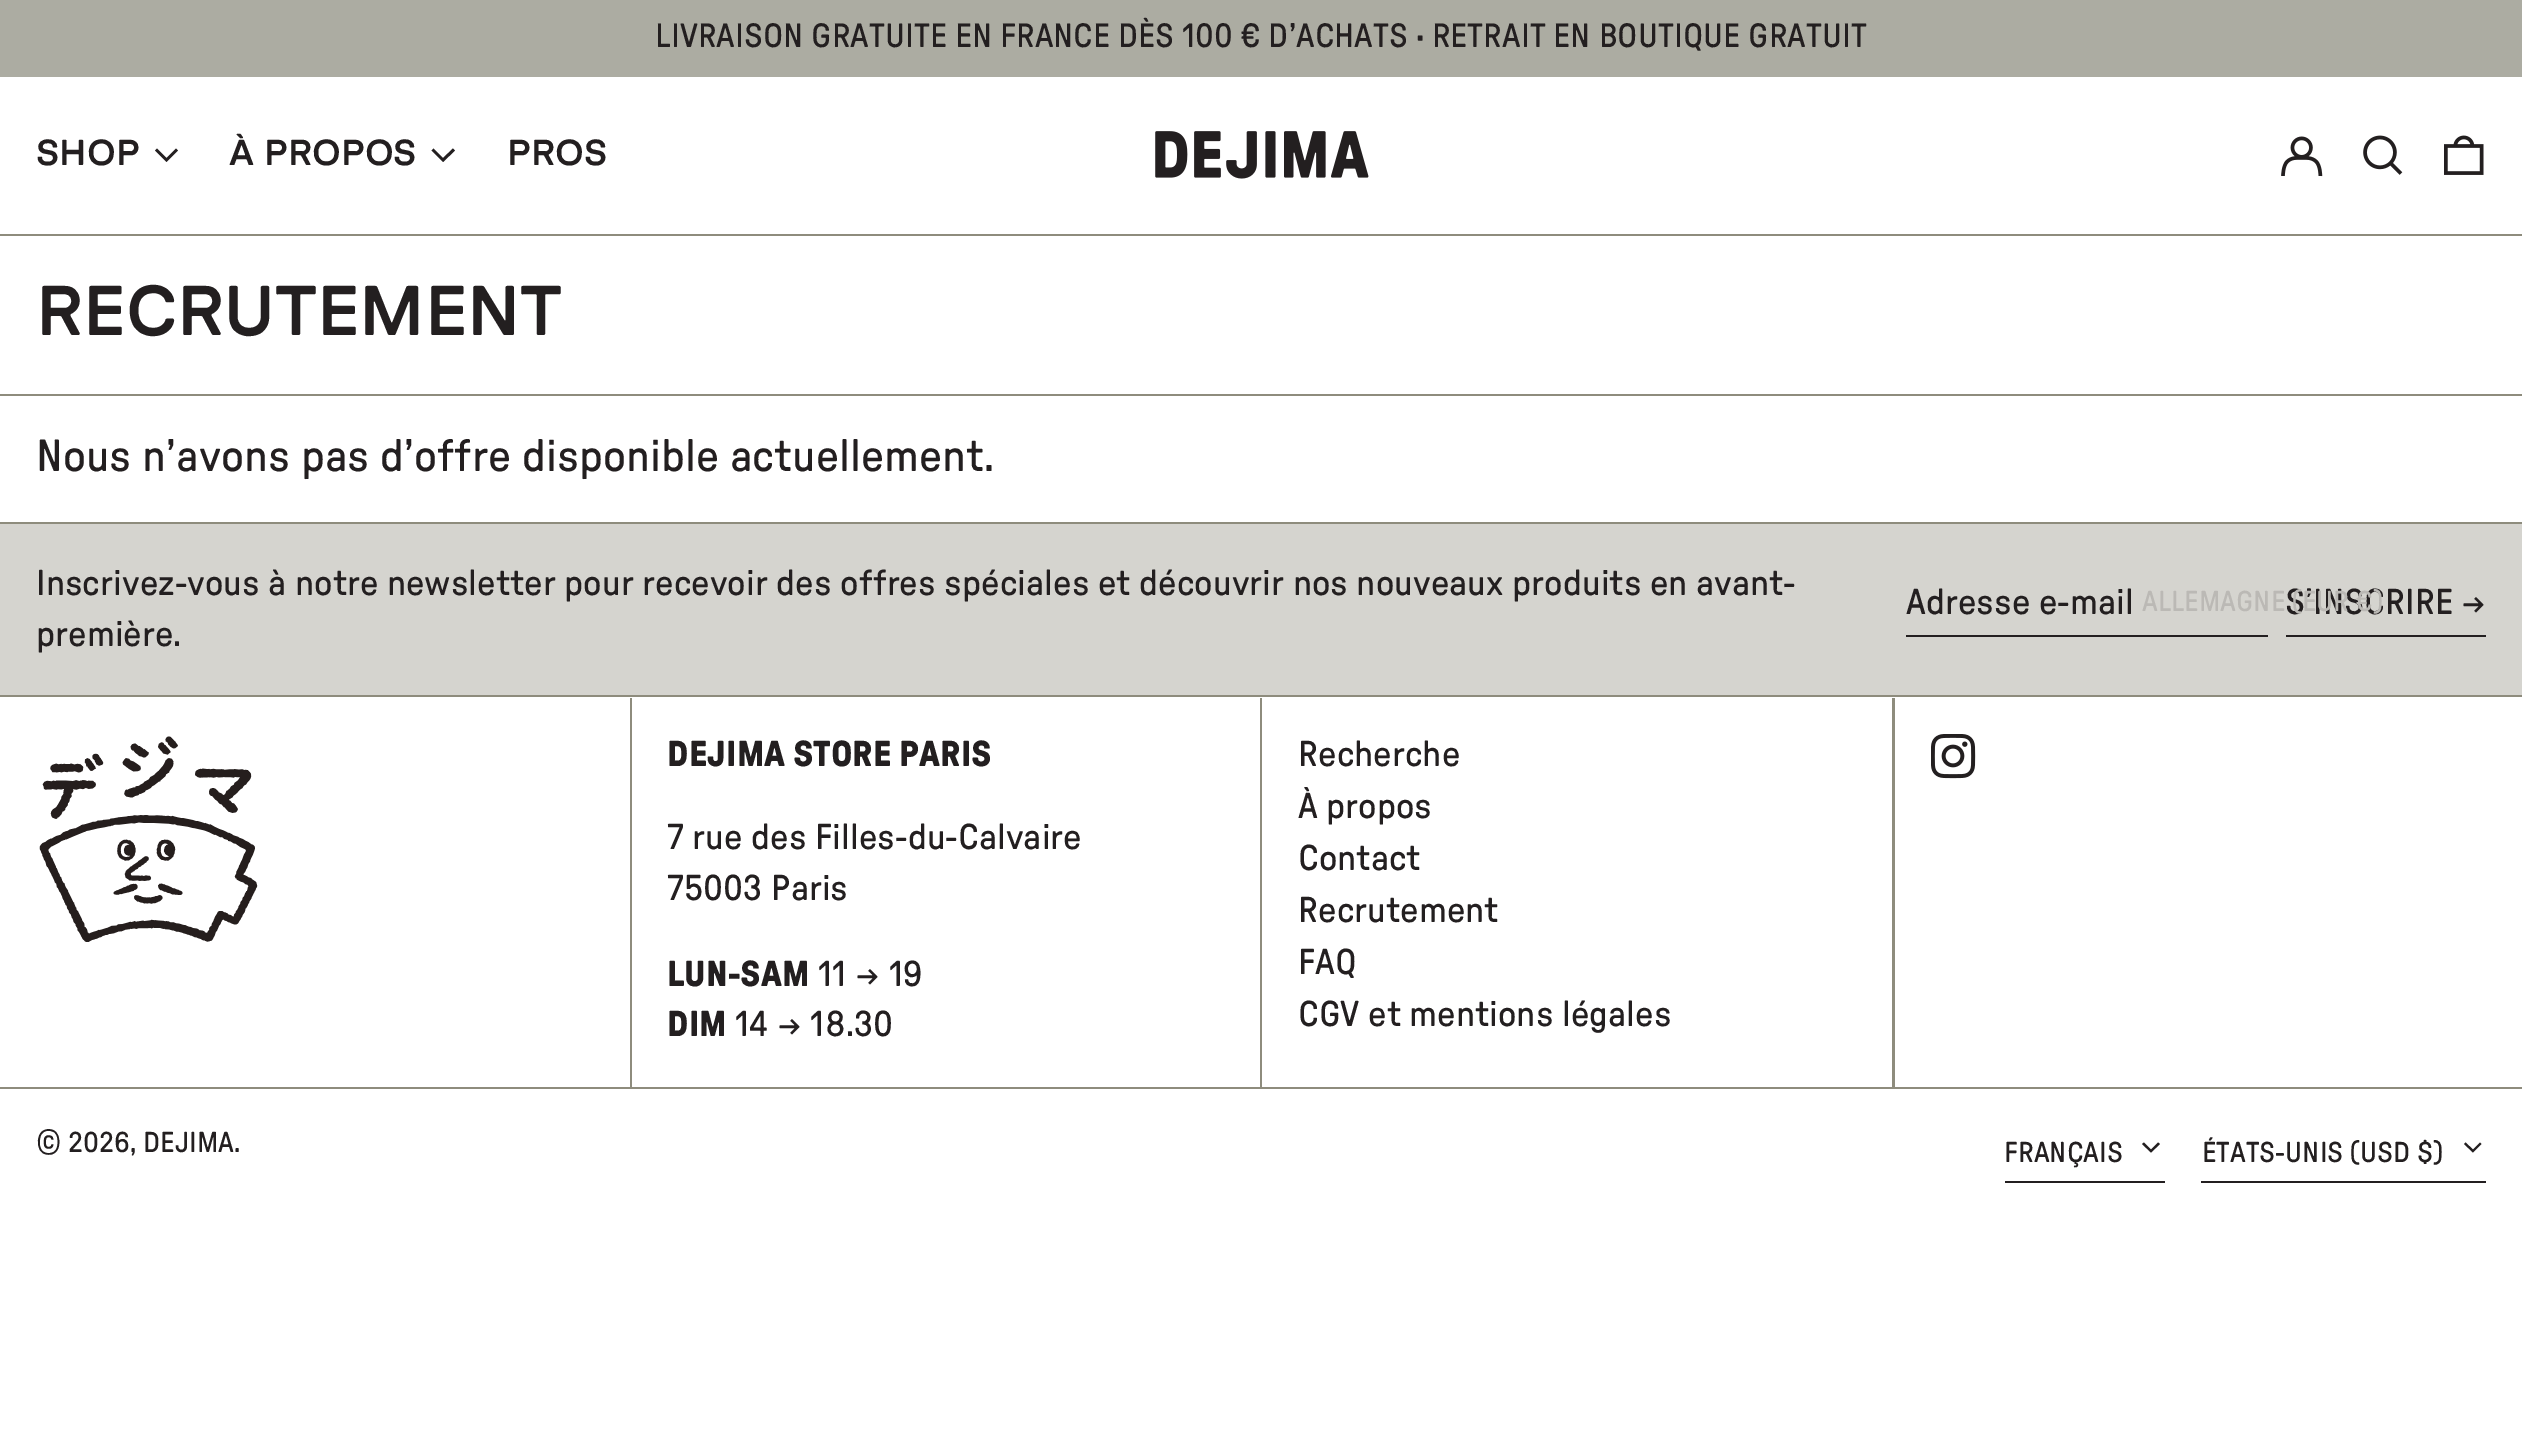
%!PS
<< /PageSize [2522 1440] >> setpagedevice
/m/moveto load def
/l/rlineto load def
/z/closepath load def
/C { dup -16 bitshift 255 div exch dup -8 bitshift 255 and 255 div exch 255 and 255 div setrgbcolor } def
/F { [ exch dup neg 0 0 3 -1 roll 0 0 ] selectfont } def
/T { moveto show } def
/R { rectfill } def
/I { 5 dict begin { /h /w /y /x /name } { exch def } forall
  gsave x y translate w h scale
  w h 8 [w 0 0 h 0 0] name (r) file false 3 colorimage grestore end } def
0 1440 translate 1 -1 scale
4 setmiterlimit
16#FFFFFF C
0 0 2522 1440 R
16#ACACA2 C
0 0 2522 77 R
/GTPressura-Regular 33.75 F
16#231F20 C
(LIVRAISON GRATUITE EN FRANCE DÈS 100 € D’ACHATS · RETRAIT EN BOUTIQUE GRATUIT) 655 47 T
/GTPressura-Medium 36 F
(SHOP) 36 165 T
166.5 162 m -11.5 -11.5 l 2 -2 l 9.5 9.5 l 9.5 -9.5 l 2 2 l z eofill
(À PROPOS) 229 165 T
443 162 m -11.5 -11.5 l 2 -2 l 9.5 9.5 l 10 -9.5 l 2 2 l z eofill
(PROS) 507 165 T
(1.rgb) 1155 131 214 48 I
(2.rgb) 2281 136 42 41 I
(3.rgb) 2363 135 40 40 I
(4.rgb) 2444 135 40 40 I
16#8E8C7D C
0 234 2522 2 R
/GTPressura-Medium 70.25 F
16#231F20 C
(RECRUTEMENT) 36 335 T
16#8E8C7D C
0 394 2522 2 R
/GTPressura-Regular 45 F
16#231F20 C
(Nous n’avons pas d’offre disponible actuellement.) 36 471 T
16#D5D4CF C
0 524 2522 171 R
16#8E8C7D C
0 522 2522 2 R
/GTPressura-Regular 36 F
16#231F20 C
(Inscrivez-vous à notre newsletter pour recevoir des offres spéciales et découvrir nos nouveaux produits en avant-) 36 595 T
(première.) 36 646 T
1906 635 362 2 R
(Adresse e-mail) 1906 614 T
2286 635 200 2 R
(S’INSCRIRE →) 2285 614 T
16#8E8C7D C
0 1087 2522 2 R
/GTPressura-Regular 28.75 F
16#231F20 C
(© 2026, DEJIMA.) 36 1152 T
2005 1181 160 2 R
(FRANÇAIS) 2004 1162 T
2151 1152.5 m -9 -8.5 l 2 -1.5 l 7 7 l 7 -7 l 2 1.5 l z eofill
16#BBB9B5 C
(ALLEMAGNE \(EUR €\)) 2142 611 T
16#231F20 C
2201 1181 285 2 R
(ÉTATS-UNIS \(USD $\)) 2202 1162 T
2473 1152.5 m -9 -8.5 l 1.5 -1.5 l 7.5 7 l 7 -7 l 1.5 1.5 l z eofill
16#8E8C7D C
0 695 2522 2 R
630 698 1265 389 R
(5.rgb) 39 736 219 206 I
16#FFFFFF C
632 698 628 389 R
/GTPressura-Bold 36 F
16#231F20 C
(DEJIMA STORE PARIS) 667 766 T
/GTPressura-Regular 36 F
(7 rue des Filles-du-Calvaire) 667 849 T
(75003 Paris) 667 900 T
/GTPressura-Bold 36 F
(LUN-SAM) 667 986 T
/GTPressura-Regular 36 F
(11 → 19) 818 986 T
/GTPressura-Bold 36 F
(DIM) 667 1036 T
/GTPressura-Regular 36 F
(14 → 18.30) 735 1036 T
16#FFFFFF C
1262 698 630 389 R
16#231F20 C
(Recherche) 1298 766 T
(À propos) 1298 818 T
(Contact) 1298 870 T
(Recrutement) 1298 922 T
(FAQ) 1298 974 T
(CGV et mentions légales) 1298 1026 T
(6.rgb) 1931 734 45 45 I
showpage
